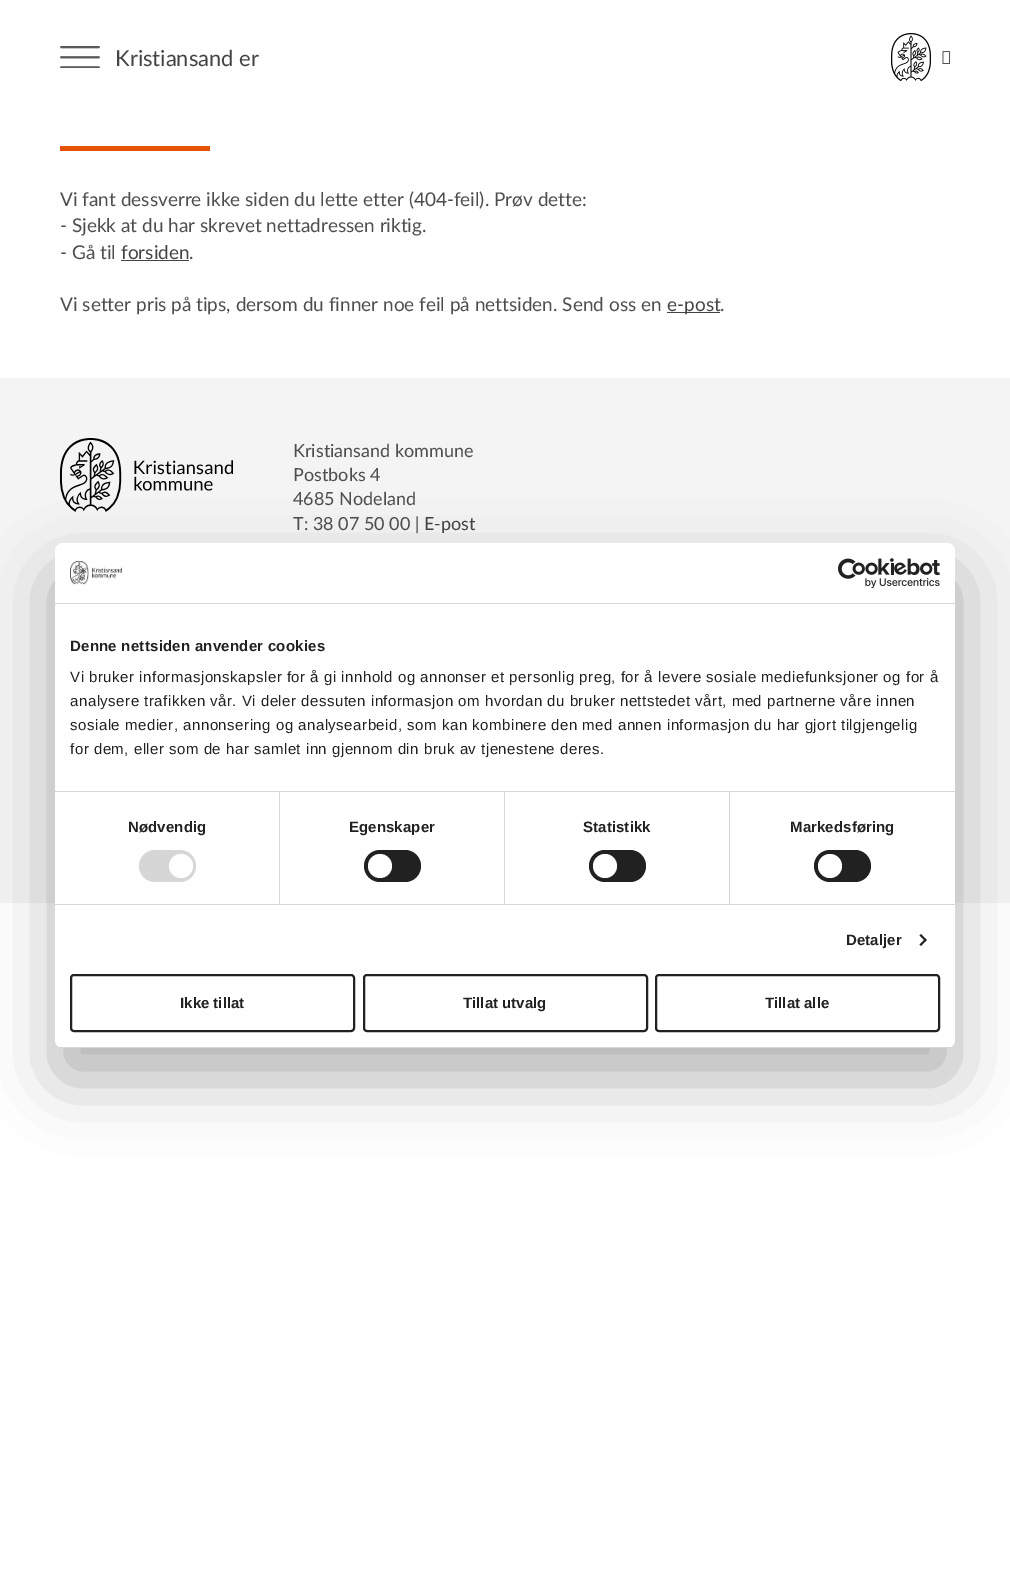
%!PS
<< /PageSize [1010 1591] /PageUsesTransparency true >> setpagedevice
/m/moveto load def
/l/rlineto load def
/z/closepath load def
/f/fill load def
/s/stroke load def
/q/gsave load def
/Q_/grestore load def
/w/setlinewidth load def
/C { dup -16 bitshift 255 div exch dup -8 bitshift 255 and 255 div exch 255 and 255 div setrgbcolor } def
/F { [ exch dup neg 0 0 3 -1 roll 0 0 ] selectfont } def
/T { moveto show } def
/R { rectfill } def
/A { dup .setfillconstantalpha .setstrokeconstantalpha } def
/O { newpath 0 360 arc closepath } def
/Q { 5 dict begin { /r /h /w /y /x } { exch def } forall
  x r add y moveto x w add y 2 copy h add r arct x w add y h add x 1 index r arct
  x y h add x y r arct x y 2 copy exch w add exch r arct closepath end } def
/S { 12 dict begin { /a /b /q /h /w /y /x } { exch def } forall gsave /was 0 def
  9 -2 -9 { dup b mul 4 div /e exch def 1 sub .425 mul 2.718 exch exp 1 add a .99 .min exch div /now exch def
    1 1 now sub 1 was sub div sub A /was now def
    w h .min e 2 mul add 0 gt { x e sub y e sub w e 2 mul add h e 2 mul add
      q e add b .6 mul add w h .min 2 div e add .min 0 .max Q fill } if } for grestore end } def
/I { 5 dict begin { /h /w /y /x /name } { exch def } forall
  gsave x y translate w h scale
  w h 8 [w 0 0 h 0 0] name (r) file false 3 colorimage grestore end } def
0 .pushpdf14devicefilter
0 1591 translate 1 -1 scale
4 setmiterlimit
16#FFFFFF C
0 0 1010 1591 R
(1.rgb) 60 46 40 22 I
/Lato-Regular 22 F
16#444444 C
(Kristiansand er) 115 66 T
(2.rgb) 891 33 40 48 I
(3.rgb) 942 51 8 13 I
16#E35205 C
60 146 150 5 R
/Lato-Regular 19 F
16#4E4E4E C
(Vi fant dessverre ikke siden du lette etter \(404-feil\). Prøv dette:) 60 206 T
(- Sjekk at du har skrevet nettadressen riktig.) 60 232 T
(- Gå til) 60 259 T
16#444444 C
(forsiden) 121 259 T
121 260 68 1 R
16#4E4E4E C
(.) 189 259 T
(Vi setter pris på tips, dersom du finner noe feil på nettsiden. Send oss en) 60 311 T
16#444444 C
667 312 53 1 R
(e-post) 667 311 T
16#4E4E4E C
(.) 720 311 T
16#F4F4F4 C
0 378 1010 525 R
(4.rgb) 60 438 173 74 I
/Lato-Regular 18 F
16#4E4E4E C
(Kristiansand kommune) 293 457 T
(Postboks 4) 293 481 T
(4685 Nodeland) 293 505 T
(T: 38 07 50 00 |) 293 530 T
16#444444 C
(E-post) 424 530 T
16#000000 C
55 575 900 505 8 34 .3 S
16#FFFFFF C
55 543 900 505 8 Q f
16#D6D6D6 C
55 603 900 1 R
(5.rgb) 70 561 52 24 I
(6.rgb) 838 558 102 30 I
55 791 900 1 R
/LiberationSans-Bold 15 F
16#212121 C
70 651 m .25 0 (Denne nettsiden anvender cookies) ashow
/LiberationSans-Regular 15 F
70 682 m .5 0 (Vi bruker informasjonskapsler for å gi innhold og annonser et personlig preg, for å levere sosiale mediefunksjoner og for å) ashow
70 706 m .5 0 (analysere trafikken vår. Vi deler dessuten informasjon om hvordan du bruker nettstedet vårt, med partnerne våre innen) ashow
70 730 m .5 0 (sosiale medier, annonsering og analysearbeid, som kan kombinere den med annen informasjon du har gjort tilgjengelig) ashow
70 754 m .5 0 (for dem, eller som de har samlet inn gjennom din bruk av tjenestene deres.) ashow
16#D6D6D6 C
55 904 900 1 R
279 792 1 112 R
/LiberationSans-Bold 15 F
16#212121 C
128 832 m .1 0 (Nødvendig) ashow
16#D6D6D6 C
139 850 57 32 16 Q f
16#FFFFFF C
181 866 12 O f
16#D6D6D6 C
504 792 1 112 R
16#212121 C
349 832 m .1 0 (Egenskaper) ashow
364 850 57 32 16 Q f
16#FFFFFF C
380 866 12 O f
16#D6D6D6 C
729 792 1 112 R
16#212121 C
583 832 m .1 0 (Statistikk) ashow
589 850 57 32 16 Q f
16#FFFFFF C
605 866 12 O f
16#212121 C
790 832 m .1 0 (Markedsføring) ashow
814 850 57 32 16 Q f
16#FFFFFF C
830 866 12 O f
16#212121 C
846 945 m .1 0 (Detaljer) ashow
921 934 m 5.5 6 l -1 1.5 l -6 -6 l z f
925.5 938.5 m 1 1.5 l -5.5 6 l -1.5 -1.5 l z f
q
55 543 900 505 8 Q clip newpath
16#D6D6D6 C
55 1047 900 1 R
Q_
2 w
71 975 283 56 3 Q s
(Ikke tillat) 180 1008 T
364 975 283 56 3 Q s
(Tillat utvalg) 463 1008 T
656 975 283 56 3 Q s
(Tillat alle) 765 1008 T
.poppdf14devicefilter showpage
